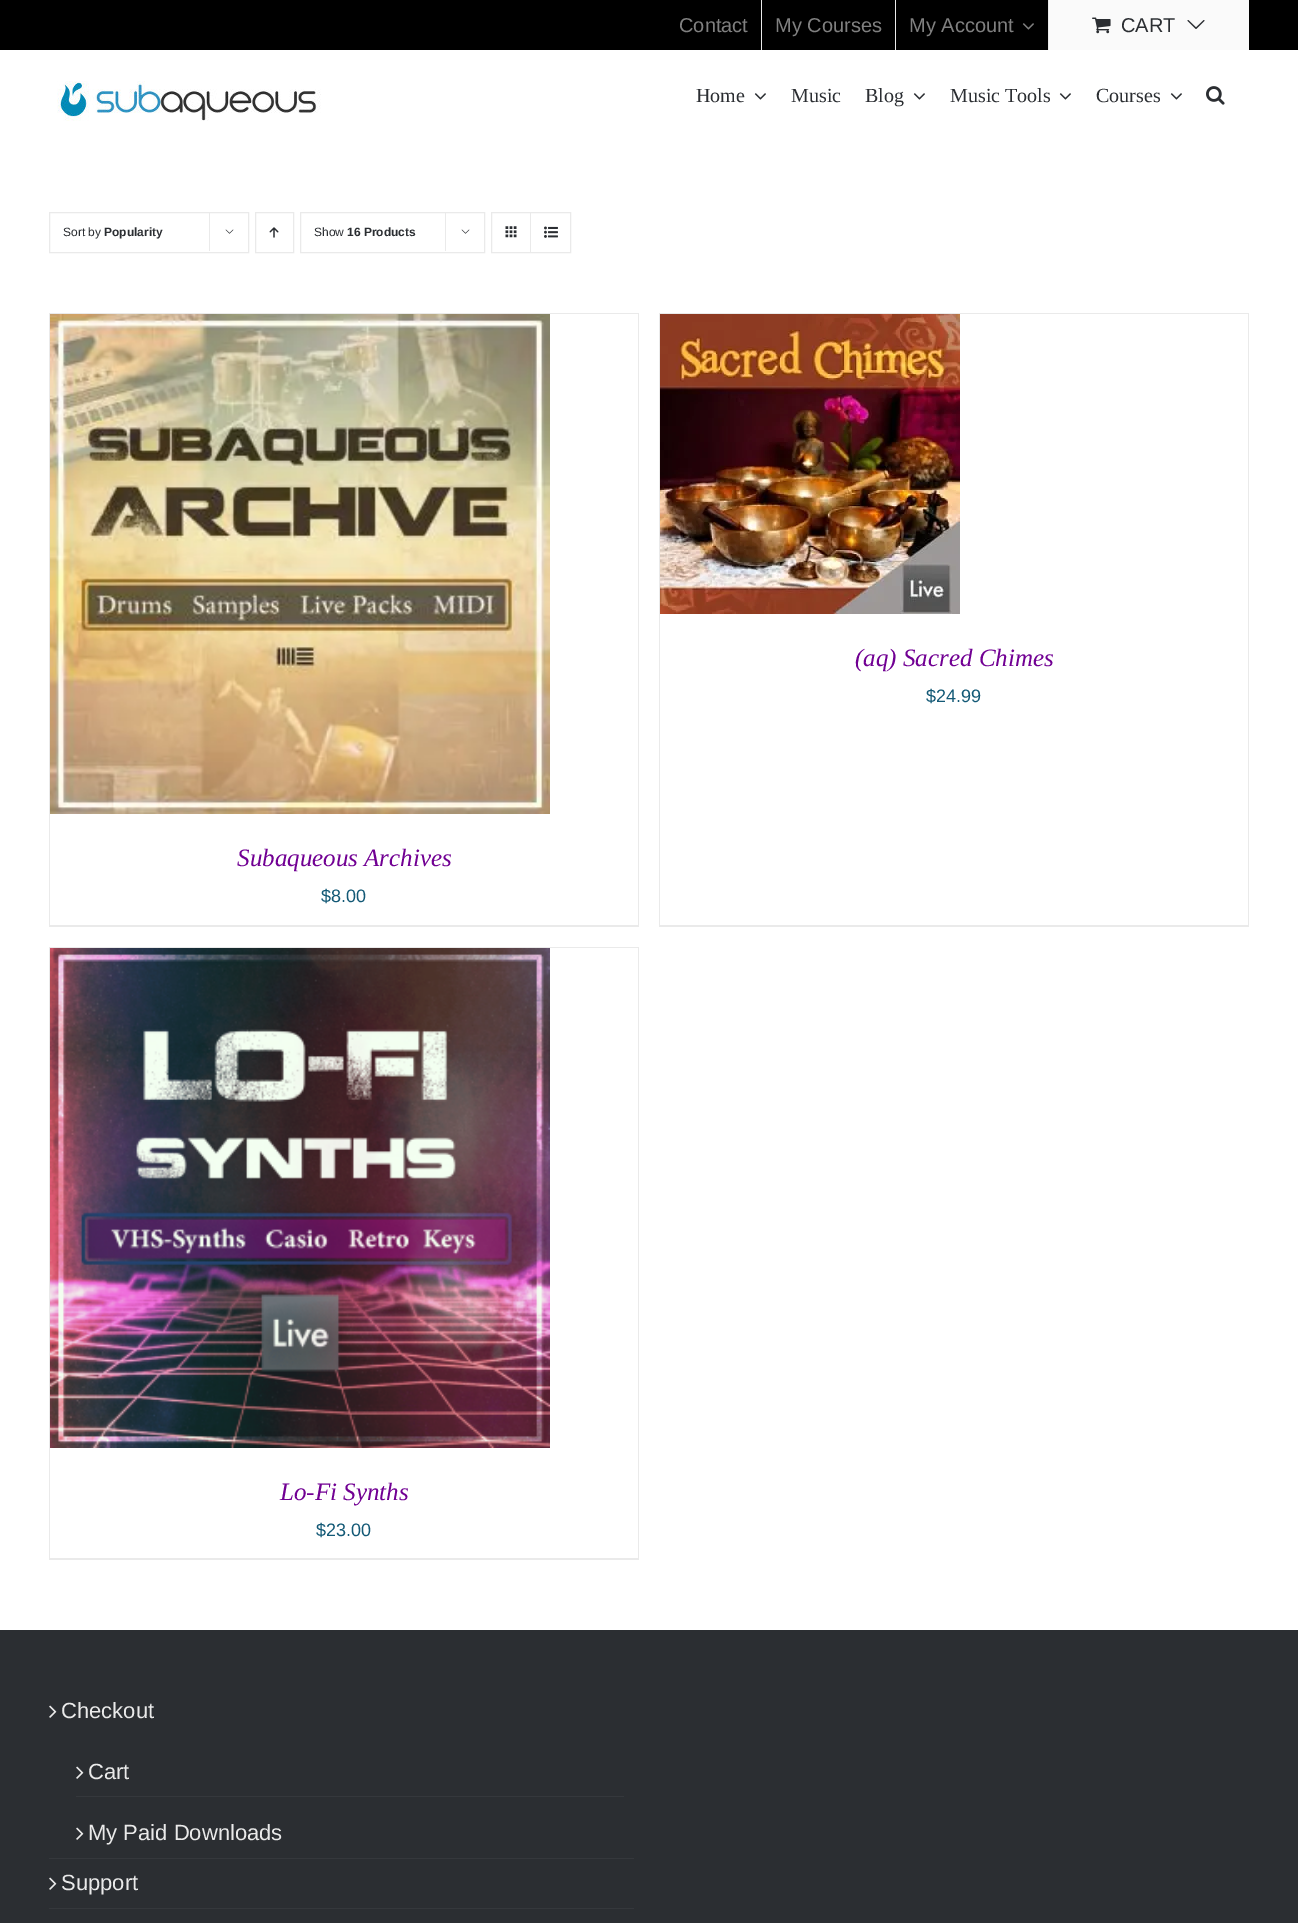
%!PS
<< /PageSize [1298 1923] >> setpagedevice
/C { dup -16 bitshift 255 div exch dup -8 bitshift 255 and 255 div exch 255 and 255 div setrgbcolor } def
/F { [ exch dup neg 0 0 3 -1 roll 0 0 ] selectfont } def
/T { moveto show } def
/R { rectfill } def
/I { 5 dict begin { /h /w /y /x /name } { exch def } forall
  gsave x y translate w h scale
  w h 8 [w 0 0 h 0 0] name (r) file false 3 colorimage grestore end } def
0 1923 translate 1 -1 scale
4 setmiterlimit
16#FFFFFF C
0 0 1298 1923 R
16#000000 C
0 0 1298 50 R
/LiberationSans-Regular 20 F
16#808080 C
(Contact) 679 32 T
16#EAEAEA C
761 0 1 50 R
16#808080 C
(My Courses) 775 32 T
16#EAEAEA C
895 0 1 50 R
16#808080 C
(My Account) 909 32 T
(1.rgb) 1022 23 12 7 I
16#EAEAEA C
1048 0 1 50 R
16#FAFAFA C
1049 0 200 50 R
(2.rgb) 1092 17 19 17 I
16#2B2E32 C
(CART) 1121 32 T
(3.rgb) 1187 20 18 9 I
(4.rgb) 57 81 264 40 I
/LiberationSerif-Regular 20 F
(Home) 696 102 T
(5.rgb) 754 93 12 7 I
(Music) 791 102 T
(Blog) 865 102 T
(5.rgb) 913 93 12 7 I
(Music Tools) 950 102 T
(5.rgb) 1059 93 12 7 I
(Courses) 1096 102 T
(5.rgb) 1170 93 12 7 I
(6.rgb) 1206 86 19 19 I
16#EAEAEA C
49.5 212.5 199 40 rectstroke
/LiberationSans-Regular 12 F
16#2B2E32 C
(Sort by) 63 236 T
/LiberationSans-Bold 12 F
(Popularity) 104 236 T
16#EAEAEA C
209 212 1 39 R
(7.rgb) 225 229 9 5 I
255.5 212.5 38 40 rectstroke
(8.rgb) 269 227 10 11 I
300.5 212.5 184 40 rectstroke
/LiberationSans-Regular 12 F
16#2B2E32 C
(Show) 314 236 T
/LiberationSans-Bold 12 F
(16 Products) 347 236 T
16#EAEAEA C
445 212 1 39 R
(7.rgb) 461 229 9 5 I
491.5 212.5 79 40 rectstroke
530 213 1 39 R
(9.rgb) 505 226 12 12 I
(10.rgb) 544 226 14 12 I
659 313 590 1 R
1248 313 1 614 R
659 925 590 2 R
659 313 1 614 R
(11.rgb) 660 314 300 300 I
/LiberationSerif-Italic 25 F
16#710093 C
(\(aq\) Sacred Chimes) 855 666 T
/LiberationSans-Regular 18 F
16#135976 C
($24.99) 926 702 T
16#EAEAEA C
49 313 590 1 R
638 313 1 614 R
49 925 590 2 R
49 313 1 614 R
(12.rgb) 50 314 500 500 I
/LiberationSerif-Italic 25 F
16#710093 C
(Subaqueous Archives) 237 866 T
/LiberationSans-Regular 18 F
16#135976 C
($8.00) 321 902 T
16#EAEAEA C
49 947 590 1 R
638 947 1 613 R
49 1558 590 2 R
49 947 1 613 R
(13.rgb) 50 948 500 500 I
/LiberationSerif-Italic 25 F
16#710093 C
(Lo-Fi Synths) 280 1500 T
/LiberationSans-Regular 18 F
16#135976 C
($23.00) 316 1536 T
16#2B2E32 C
0 1630 1298 293 R
16#35383C C
49 1858 585 1 R
(14.rgb) 49 1705 8 13 I
/LiberationSans-Regular 22 F
16#EAEAEA C
(Checkout) 61 1718 T
16#35383C C
76 1796 548 1 R
(14.rgb) 76 1766 8 13 I
16#EAEAEA C
(Cart) 88 1779 T
(14.rgb) 76 1827 8 13 I
(My Paid Downloads) 88 1840 T
16#35383C C
49 1908 585 1 R
(14.rgb) 49 1877 8 13 I
16#EAEAEA C
(Support) 61 1890 T
showpage
